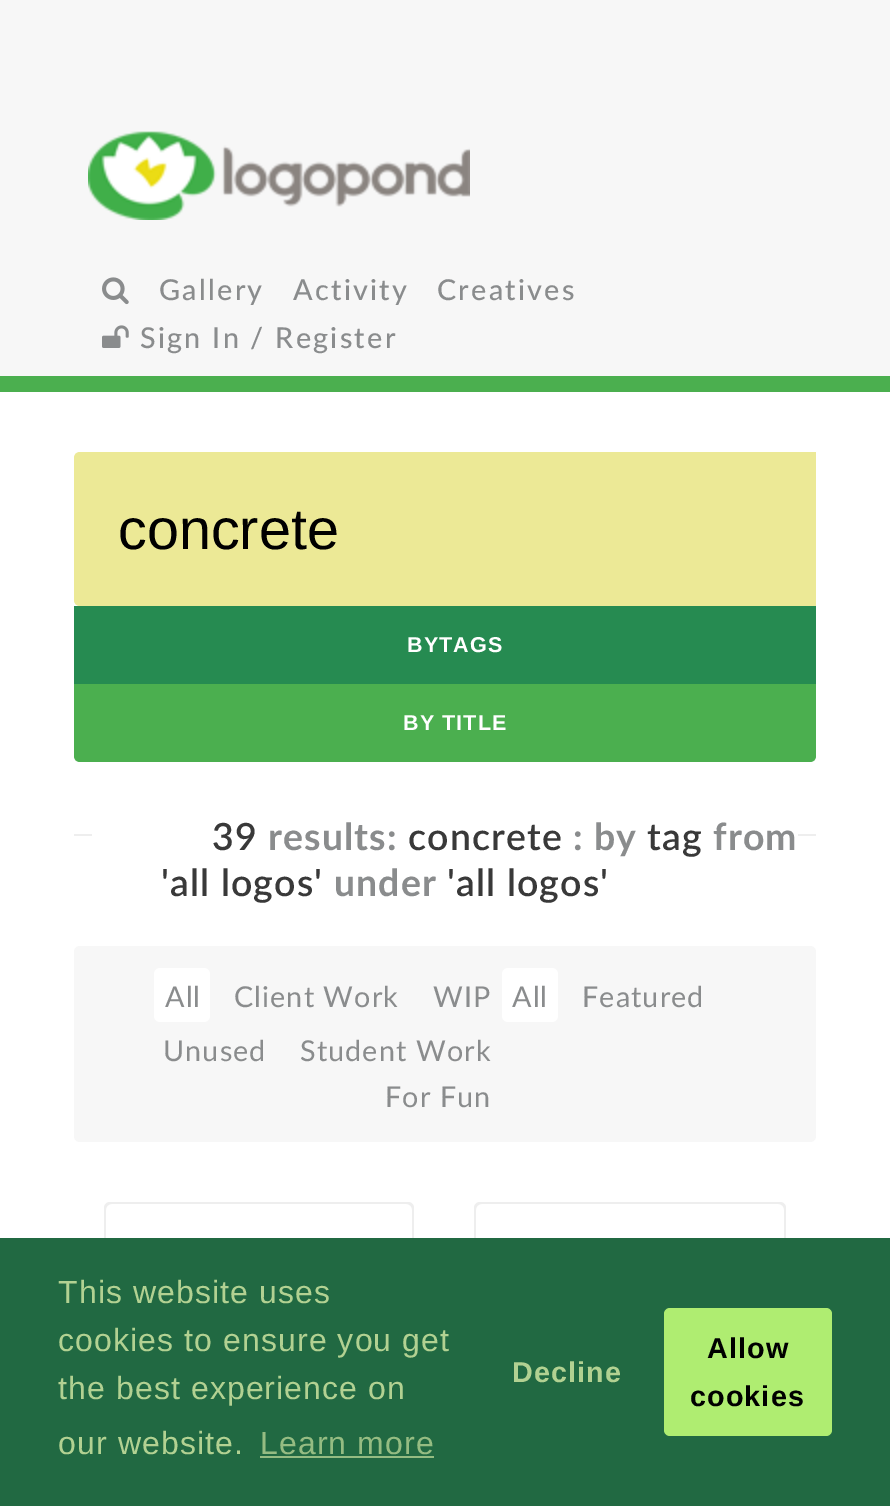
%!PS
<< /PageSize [890 1506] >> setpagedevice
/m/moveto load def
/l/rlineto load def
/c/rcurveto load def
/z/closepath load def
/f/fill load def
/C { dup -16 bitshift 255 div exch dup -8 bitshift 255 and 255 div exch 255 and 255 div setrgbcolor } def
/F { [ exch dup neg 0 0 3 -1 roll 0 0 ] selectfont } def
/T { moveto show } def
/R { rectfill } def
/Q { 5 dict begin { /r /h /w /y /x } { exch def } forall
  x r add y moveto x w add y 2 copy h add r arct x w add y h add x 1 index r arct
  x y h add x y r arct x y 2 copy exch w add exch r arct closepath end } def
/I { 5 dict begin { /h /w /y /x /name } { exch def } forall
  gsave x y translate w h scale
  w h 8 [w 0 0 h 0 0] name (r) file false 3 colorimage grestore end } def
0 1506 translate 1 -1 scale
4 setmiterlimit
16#FFFFFF C
0 0 890 1506 R
16#F7F7F7 C
0 0 890 376 R
16#4BAF4F C
0 376 890 16 R
(1.rgb) 88 131 382 89 I
(2.rgb) 102 277 27 28 I
/Lato-Medium 28.75 F
16#8A8C8D C
159 300 m 2.25 0 (Gallery) ashow
293 300 m 2.25 0 (Activity) ashow
437 300 m 2.25 0 (Creatives) ashow
(3.rgb) 102 325 27 23 I
140 348 m 2.25 0 (Sign In / Register) ashow
16#ECE996 C
80 452 m 736 0 l 0 154 l -736 0 l -3.5 0 -6 -2.5 -6 -6 c 0 -142 l 0 -3.5 2.5 -6 6 -6 c z f
/LiberationSans-Regular 57.5 F
16#000000 C
(concrete) 118 549 T
16#268B51 C
74 606 742 78 R
/LiberationSans-Bold 21.5 F
16#FFFFFF C
407 652 m 1.1 0 (BYTAGS) ashow
16#4BAF4F C
74 684 m 742 0 l 0 72 l 0 3.5 -2.5 6 -6 6 c -730 0 l -3.5 0 -6 -2.5 -6 -6 c z f
16#FFFFFF C
403 730 m 1.1 0 (BY TITLE) ashow
16#EEEEEE C
74 834 742 2 R
16#FFFFFF C
92 834 706 2 R
/Lato-SemiBold 37.5 F
16#393939 C
212 850 m 1.1 0 (39) ashow
/Lato-Bold 37.5 F
16#8A8C8D C
268 850 m 1.1 0 (results:) ashow
/Lato-SemiBold 37.5 F
16#393939 C
408 850 m 1.1 0 (concrete) ashow
/Lato-Bold 37.5 F
16#8A8C8D C
573 850 m 1.1 0 (: by) ashow
/Lato-SemiBold 37.5 F
16#393939 C
647 850 m 1.1 0 (tag) ashow
/Lato-Bold 37.5 F
16#8A8C8D C
713 850 m 1.1 0 (from) ashow
/Lato-SemiBold 37.5 F
16#393939 C
161 896 m 1.1 0 ('all logos') ashow
/Lato-Bold 37.5 F
16#8A8C8D C
334 896 m 1.1 0 (under) ashow
/Lato-SemiBold 37.5 F
16#393939 C
447 896 m 1.1 0 ('all logos') ashow
16#F7F7F7 C
74 946 742 196 6 Q f
16#FFFFFF C
154 968 56 54 6 Q f
/Lato-Regular 28.75 F
16#8A8C8D C
165 1007 m 1.1 0 (All) ashow
234 1007 m 1.1 0 (Client Work) ashow
433 1007 m 1.1 0 (WIP) ashow
163 1061 m 1.1 0 (Unused) ashow
300 1061 m 1.1 0 (Student Work) ashow
385 1107 m 1.1 0 (For Fun) ashow
16#FFFFFF C
502 968 56 54 6 Q f
16#8A8C8D C
512 1007 m 1.1 0 (All) ashow
582 1007 m 1.1 0 (Featured) ashow
16#EEEEEE C
104 1202 310 250 6 Q f
(4.rgb) 106 1204 306 34 I
474 1202 312 250 6 Q f
(5.rgb) 476 1204 308 34 I
16#216942 C
0 1238 890 268 R
/LiberationSans-Regular 32 F
16#B2D192 C
58 1303 m 1.1 0 (This website uses) ashow
58 1351 m 1.1 0 (cookies to ensure you get) ashow
58 1399 m 1.1 0 (the best experience on) ashow
58 1454 m 1.1 0 (our website.) ashow
16#95BC82 C
260 1454 m 1.1 0 (Learn more) ashow
260 1456 174 2 R
/LiberationSans-Bold 28.75 F
16#B2D192 C
512 1382 m 1.1 0 (Decline) ashow
16#AFED71 C
664 1308 168 128 6 Q f
16#000000 C
707 1358 m 1.1 0 (Allow) ashow
690 1406 m 1.1 0 (cookies) ashow
showpage
